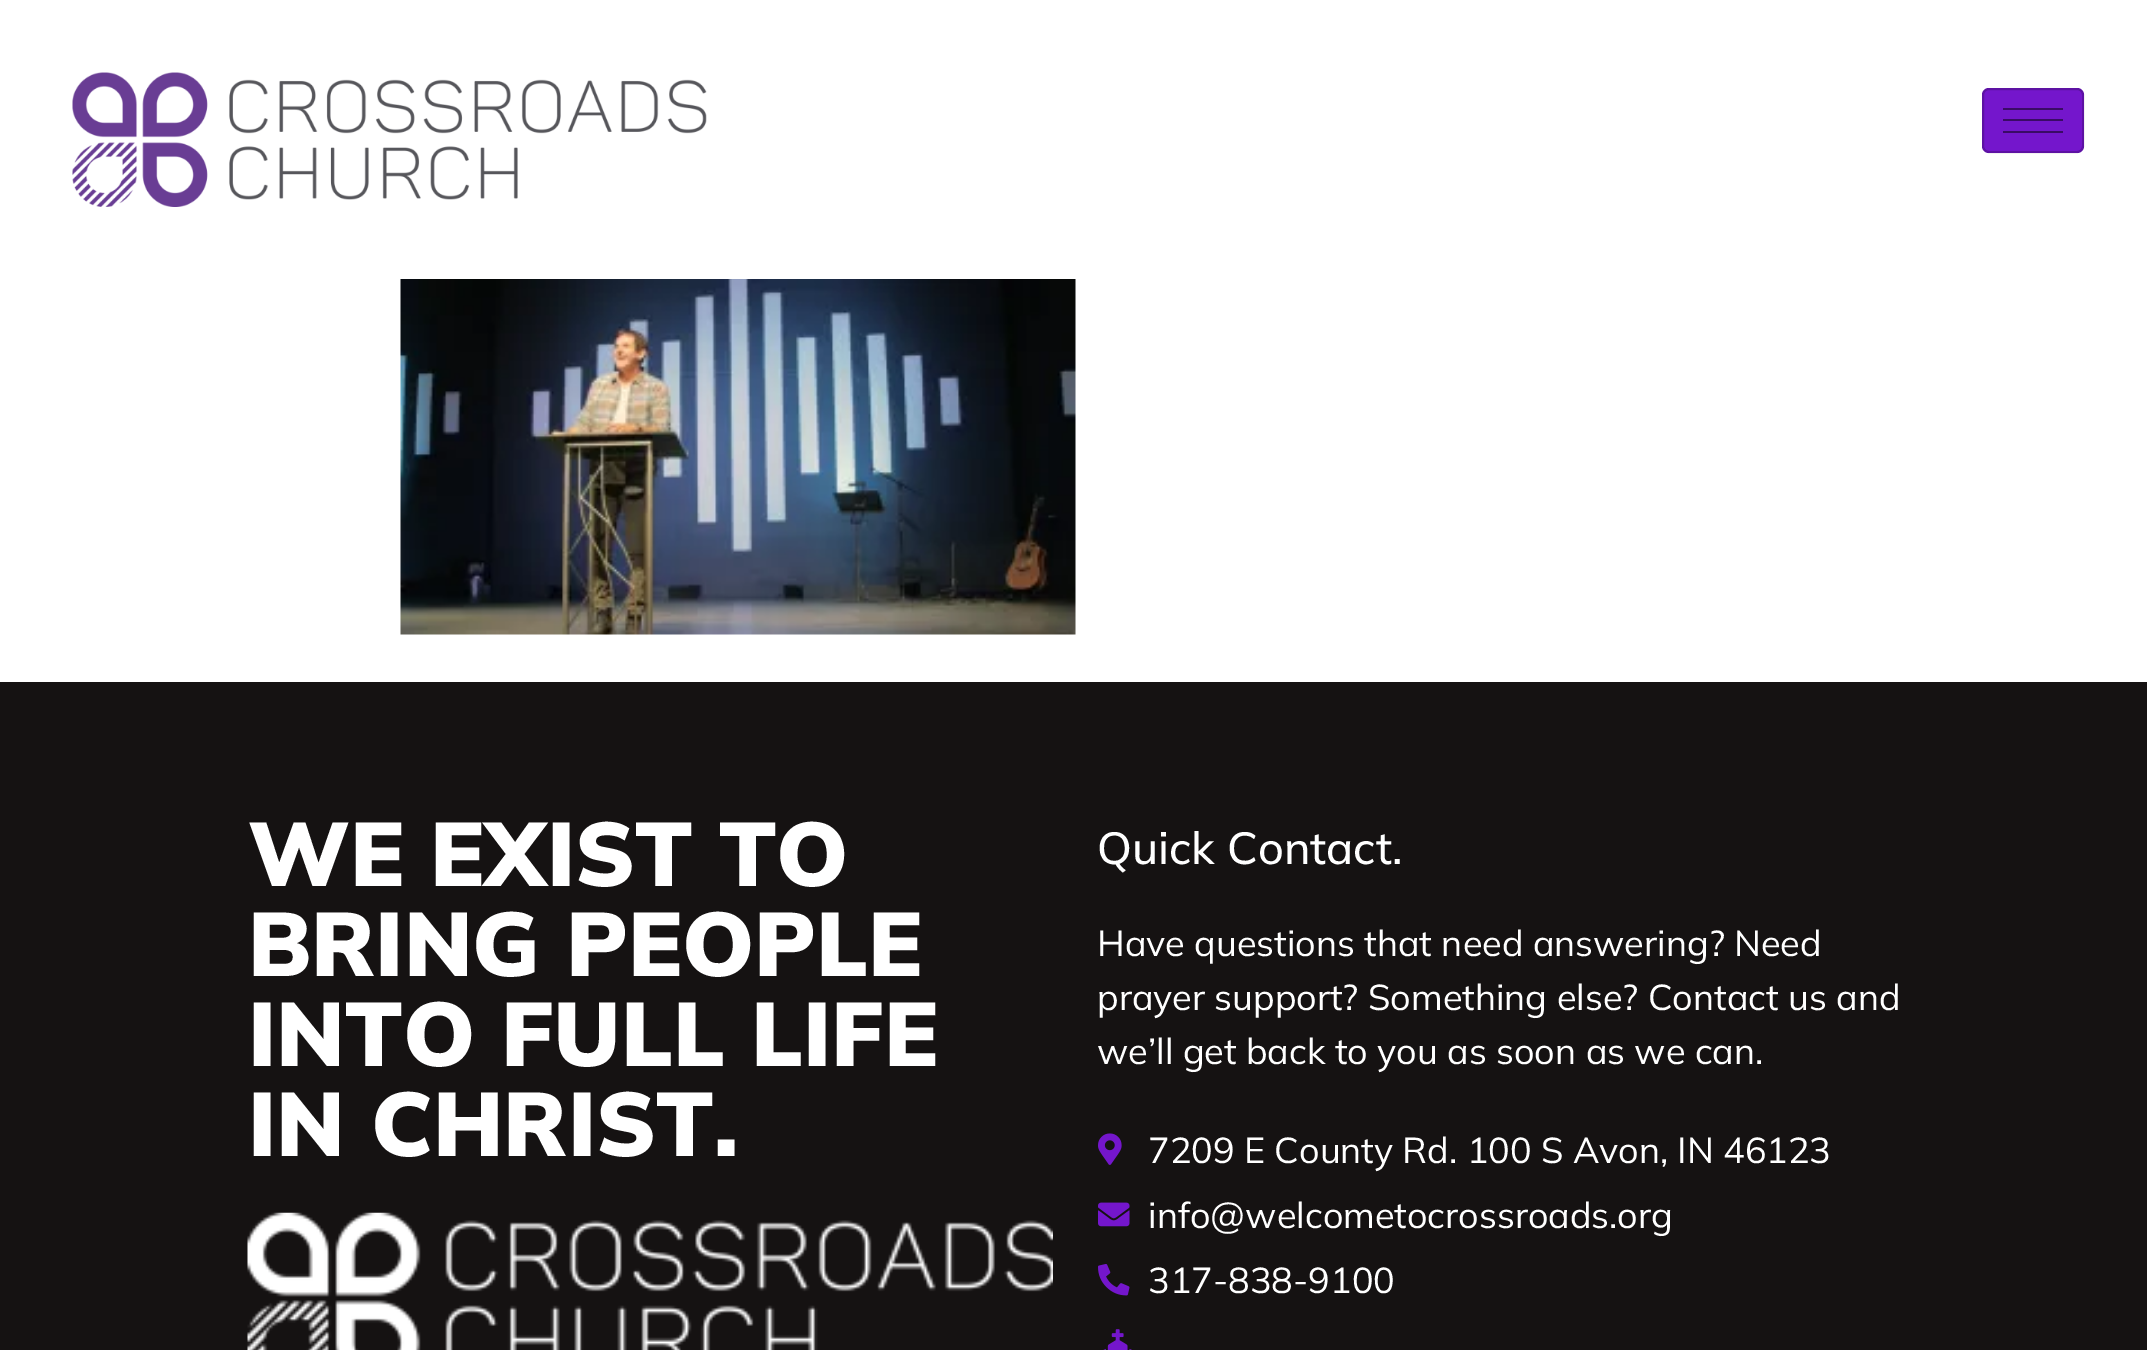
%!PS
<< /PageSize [2147 1350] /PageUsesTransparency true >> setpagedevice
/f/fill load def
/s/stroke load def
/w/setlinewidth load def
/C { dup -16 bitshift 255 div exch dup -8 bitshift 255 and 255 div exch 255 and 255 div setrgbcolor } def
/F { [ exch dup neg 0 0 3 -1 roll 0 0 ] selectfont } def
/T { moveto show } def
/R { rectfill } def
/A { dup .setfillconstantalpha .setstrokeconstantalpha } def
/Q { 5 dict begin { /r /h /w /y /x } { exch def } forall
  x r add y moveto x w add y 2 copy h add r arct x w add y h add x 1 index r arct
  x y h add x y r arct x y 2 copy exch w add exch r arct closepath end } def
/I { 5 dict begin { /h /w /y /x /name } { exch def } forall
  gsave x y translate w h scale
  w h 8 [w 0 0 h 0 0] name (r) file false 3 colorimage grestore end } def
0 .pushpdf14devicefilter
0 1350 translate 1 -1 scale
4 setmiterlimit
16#FFFFFF C
0 0 2147 1350 R
(1.rgb) 72 72 635 135 I
16#7416CC C
1982 88 102 65 7 Q f
0.2 A
16#000000 C
2 w
1983 89 100 63 6 Q s
1 A
16#3A0B66 C
2003 108 60 2 R
2003 119 60 2 R
2003 131 60 2 R
(2.rgb) 400 279 676 356 I
16#151212 C
0 682 2147 668 R
/Mulish-Black 90 F
16#FFFFFF C
(WE EXIST TO) 248 886 T
(BRING PEOPLE) 248 976 T
(INTO FULL LIFE) 248 1066 T
(IN CHRIST.) 248 1156 T
(3.rgb) 247 1212 806 138 I
/Mulish-Medium 45 F
(Quick Contact.) 1097 864 T
/Mulish-Regular 36 F
(Have questions that need answering? Need) 1097 956 T
(prayer support? Something else? Contact us and) 1097 1010 T
(we’ll get back to you as soon as we can.) 1097 1064 T
(4.rgb) 1098 1133 24 32 I
(7209 E County Rd. 100 S Avon, IN 46123) 1148 1163 T
(5.rgb) 1098 1202 32 25 I
(info@welcometocrossroads.org) 1148 1228 T
(6.rgb) 1098 1264 32 32 I
(317-838-9100) 1148 1293 T
(7.rgb) 1103 1329 29 21 I
.poppdf14devicefilter showpage
